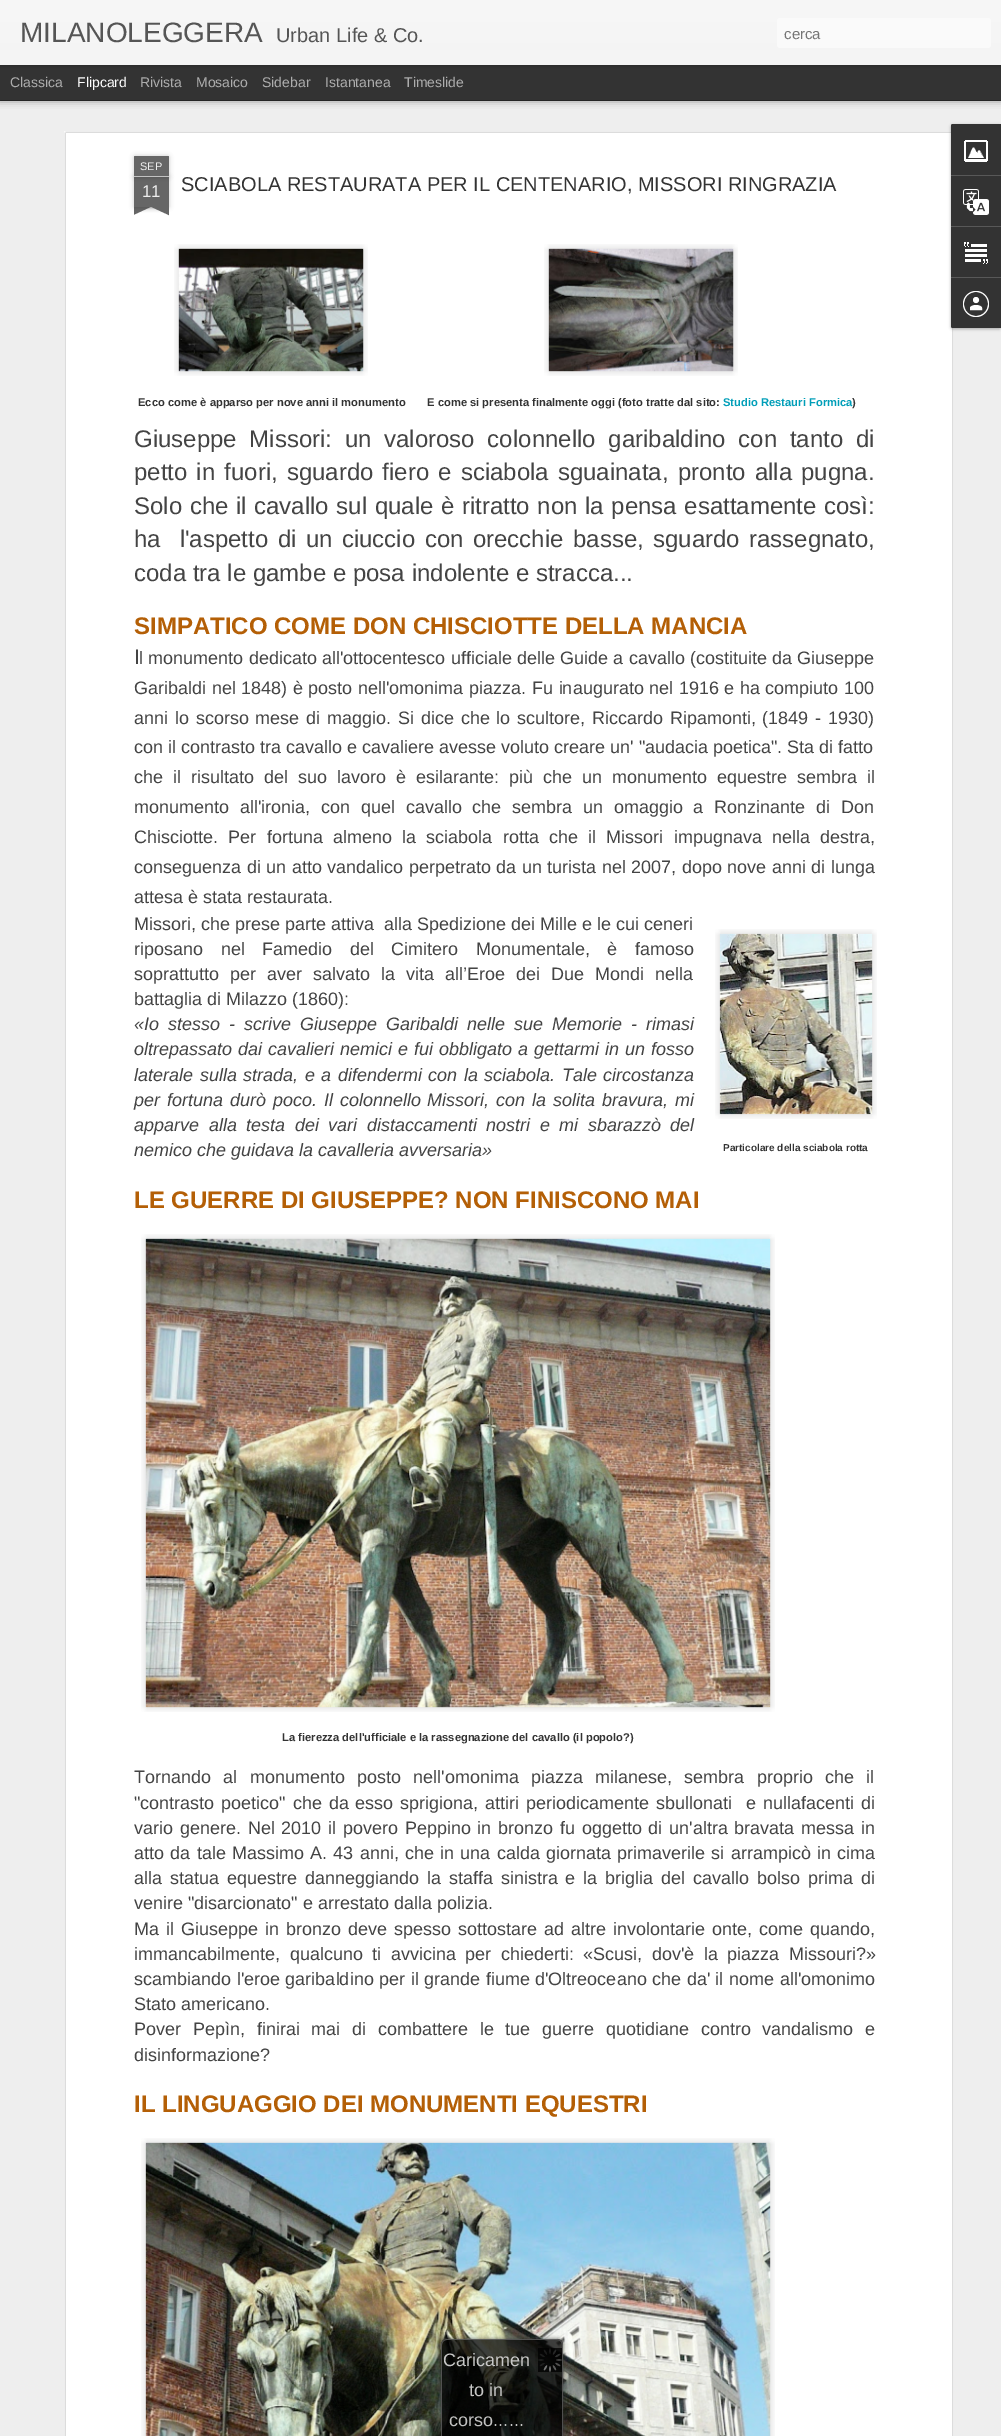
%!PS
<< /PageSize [1001 2436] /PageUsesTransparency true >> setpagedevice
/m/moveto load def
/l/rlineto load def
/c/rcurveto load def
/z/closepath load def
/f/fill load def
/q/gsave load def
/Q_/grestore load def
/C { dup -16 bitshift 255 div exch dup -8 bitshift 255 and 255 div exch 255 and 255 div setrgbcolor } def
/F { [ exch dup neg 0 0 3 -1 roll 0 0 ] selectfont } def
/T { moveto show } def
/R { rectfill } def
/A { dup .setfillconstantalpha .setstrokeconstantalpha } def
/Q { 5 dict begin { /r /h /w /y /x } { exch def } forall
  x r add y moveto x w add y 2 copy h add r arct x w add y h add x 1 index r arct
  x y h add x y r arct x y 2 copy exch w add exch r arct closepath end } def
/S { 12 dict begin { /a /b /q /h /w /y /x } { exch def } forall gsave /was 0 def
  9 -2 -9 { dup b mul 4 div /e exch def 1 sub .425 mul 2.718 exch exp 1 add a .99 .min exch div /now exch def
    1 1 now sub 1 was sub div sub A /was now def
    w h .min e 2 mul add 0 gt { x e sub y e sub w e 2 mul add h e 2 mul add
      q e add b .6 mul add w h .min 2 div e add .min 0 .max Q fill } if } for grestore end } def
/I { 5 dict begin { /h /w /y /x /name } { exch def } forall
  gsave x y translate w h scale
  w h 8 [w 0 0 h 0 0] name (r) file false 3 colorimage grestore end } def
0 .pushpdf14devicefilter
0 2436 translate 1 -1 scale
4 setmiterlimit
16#333333 C
0 0 1001 2436 R
16#EEEEEE C
0 101 1001 2335 R
16#000000 C
0 65 1001 35 0 4 .5 S
16#333333 C
0 65 1001 35 R
16#000000 C
0 0 1001 65 0 2.5 .3 S
q 0 0 m 1001 0 l 0 65 l -1001 0 l z clip newpath
<< /ShadingType 2 /ColorSpace /DeviceRGB /Coords [0 0 0 65] /Extend [true true] /Function << /FunctionType 2 /Domain [0 1] /C0 [.969 .969 .969] /C1 [.957 .957 .957] /N 1 >> >> shfill Q_
/LiberationSans-Regular 28 F
16#555555 C
(MILANOLEGGERA) 20 42 T
/LiberationSans-Regular 20 F
(Urban Life & Co.) 276 42 T
16#FAFAFA C
777 18 214 30 3 Q f
/LiberationSans-Regular 15 F
16#757575 C
(cerca) 784 39 T
/LiberationSans-Regular 14 F
16#ADADAD C
(Classica) 10 87 T
16#FFFFFF C
(Flipcard) 77 87 T
16#ADADAD C
(Rivista) 140 87 T
(Mosaico) 196 87 T
(Sidebar) 262 87 T
(Istantanea) 325 87 T
(Timeslide) 404 87 T
16#FFFFFF C
64 131 890 2305 R
(1.rgb) 64 131 890 2305 I
16#000000 C
134 177 35 30 0 2.5 .2 S
16#666666 C
134 177 35 30 R
16#000000 C
134 156 35 21 1 2.5 .2 S
16#666666 C
135 156 m 33 0 l .5 0 1 .5 1 1 c 0 20 l -35 0 l 0 -20 l 0 -.5 .5 -1 1 -1 c z f
16#C2C2C2 C
134 176 35 1 R
/LiberationSans-Regular 11 F
16#EEEEEE C
(SEP) 140 170 T
/LiberationSans-Regular 17 F
(11) 142 197 T
q
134 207 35 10 rectclip
16#000000 C
125 197 50 10 0 2.5 .2 S
Q_
q
134 207 35 10 rectclip
16#666666 C
125 208 m 45 -21 l 4 9 l -45 21 l z f
Q_
q
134 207 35 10 rectclip
16#000000 C
128 197 50 10 0 2.5 .2 S
Q_
q
134 207 35 10 rectclip
16#666666 C
132 187 m 45 21 l -4 9 l -45 -21 l z f
Q_
/LiberationSans-Regular 20 F
16#333333 C
(SCIABOLA RESTAURATA PER IL CENTENARIO, MISSORI RINGRAZIA) 181 191 T
(2.rgb) 174 244 194 132 I
(3.rgb) 178 248 186 124 I
/LiberationSans-Bold 11.2 F
(Ecco come è apparso per nove anni il monumento) 138 406 T
(4.rgb) 544 244 194 132 I
(5.rgb) 548 248 186 124 I
(E come si presenta finalmente oggi \(foto tratte dal sito:) 427 406 T
16#009EB8 C
(Studio Restauri Formica) 723 406 T
16#333333 C
(\)) 852 406 T
/LiberationSans-Regular 24 F
16#444444 C
134 447 m 6 0 32 (Giuseppe Missori: un valoroso colonnello garibaldino con tanto di) widthshow
134 480 m 2.4 0 32 (petto in fuori, sguardo fiero e sciabola sguainata, pronto alla pugna.) widthshow
134 514 m .9 0 32 (Solo che il cavallo sul quale è ritratto non la pensa esattamente così:) widthshow
134 547 m 2.75 0 32 (ha  l'aspetto di un ciuccio con orecchie basse, sguardo rassegnato,) widthshow
(coda tra le gambe e posa indolente e stracca...) 134 581 T
/LiberationSans-Bold 24 F
16#B45F06 C
(SIMPATICO COME DON CHISCIOTTE DELLA MANCIA) 134 634 T
/LiberationSans-Regular 21 F
16#444444 C
(I) 134 664 T
/LiberationSans-Regular 18 F
139 664 m .25 0 32 (l monumento dedicato all'ottocentesco ufficiale delle Guide a cavallo \(costituite da Giuseppe) widthshow
134 694 m .5 0 32 (Garibaldi nel 1848\) è posto nell'omonima piazza.) widthshow
532 694 m .5 0 32 (Fu inaugurato nel 1916 e ha compiuto 100) widthshow
134 724 m 1.75 0 32 (anni lo scorso mese di maggio.) widthshow
398 724 m 1.75 0 32 (Si dice che lo scultore, Riccardo Ripamonti, \(1849 - 1930\)) widthshow
(con il contrasto tra cavallo e cavaliere avesse voluto creare un' "audacia poetica". Sta di fatto) 134 753 T
134 783 m 5 0 32 (che il risultato del suo lavoro è esilarante: più che un monumento equestre sembra il) widthshow
134 813 m 5.75 0 32 (monumento all'ironia, con quel cavallo che sembra un omaggio a Ronzinante di Don) widthshow
134 843 m 5.25 0 32 (Chisciotte. Per fortuna almeno la sciabola rotta che il Missori impugnava nella destra,) widthshow
134 873 m .5 0 32 (conseguenza di un atto vandalico perpetrato da un turista nel 2007, dopo nove anni di lunga) widthshow
(attesa è stata restaurata.) 134 903 T
(Missori, che prese parte attiva  alla Spedizione dei Mille e le cui ceneri) 134 930 T
134 955 m 12.5 0 32 (riposano nel Famedio del Cimitero Monumentale, è famoso) widthshow
134 980 m 6 0 32 (soprattutto per aver salvato la vita all’Eroe dei Due Mondi nella) widthshow
(battaglia di Milazzo \(1860\):) 134 1005 T
/LiberationSans-Italic 18 F
134 1030 m 4 0 32 («Io stesso - scrive Giuseppe Garibaldi nelle sue Memorie - rimasi) widthshow
134 1055 m 1 0 32 (oltrepassato dai cavalieri nemici e fui obbligato a gettarmi in un fosso) widthshow
134 1081 m 1.5 0 32 (laterale sulla strada, e a difendermi con la sciabola. Tale circostanza) widthshow
134 1106 m 1.9 0 32 (per fortuna durò poco. Il colonnello Missori, con la solita bravura, mi) widthshow
134 1131 m 4.5 0 32 (apparve alla testa dei vari distaccamenti nostri e mi sbarazzò del) widthshow
(nemico che guidava la cavalleria avversaria») 134 1156 T
(6.rgb) 715 929 162 190 I
(7.rgb) 719 933 154 182 I
/LiberationSans-Bold 10 F
16#333333 C
(Particolare della sciabola rotta) 723 1151 T
/LiberationSans-Bold 24 F
16#B45F06 C
(LE GUERRE DI GIUSEPPE? NON FINISCONO MAI) 134 1208 T
(8.rgb) 141 1234 634 478 I
(9.rgb) 145 1238 626 470 I
/LiberationSans-Bold 11.2 F
16#333333 C
(La fierezza dell'ufficiale e la rassegnazione del cavallo \(il popolo?\)) 282 1741 T
/LiberationSans-Regular 18 F
16#444444 C
134 1783 m 7.25 0 32 (Tornando al monumento posto nell'omonima piazza milanese, sembra proprio che il) widthshow
134 1809 m 1.9 0 32 ("contrasto poetico" che da esso sprigiona, attiri periodicamente sbullonati  e nullafacenti di) widthshow
134 1834 m 1.75 0 32 (vario genere. Nel 2010 il povero Peppino in bronzo fu oggetto di un'altra bravata messa in) widthshow
134 1859 m 1.25 0 32 (atto da tale Massimo A. 43 anni, che in una calda giornata primaverile si arrampicò in cima) widthshow
134 1884 m 2.9 0 32 (alla statua equestre danneggiando la staffa sinistra e la briglia del cavallo bolso prima di) widthshow
(venire "disarcionato" e arrestato dalla polizia.) 134 1909 T
134 1935 m 2 0 32 (Ma il Giuseppe in bronzo deve spesso sottostare ad altre involontarie onte, come quando,) widthshow
134 1960 m 4.5 0 32 (immancabilmente, qualcuno ti avvicina per chiederti: «Scusi, dov'è la piazza Missouri?») widthshow
134 1985 m .5 0 32 (scambiando l'eroe garibaldino per il grande fiume d'Oltreoceano che da' il nome all'omonimo) widthshow
(Stato americano.) 134 2010 T
134 2035 m 6.75 0 32 (Pover Pepìn, finirai mai di combattere le tue guerre quotidiane contro vandalismo e) widthshow
(disinformazione?) 134 2061 T
/LiberationSans-Bold 24 F
16#B45F06 C
(IL LINGUAGGIO DEI MONUMENTI EQUESTRI) 134 2112 T
(10.rgb) 141 2138 634 298 I
(11.rgb) 145 2142 626 294 I
16#000000 C
951 125 50 204 2 1.5 .3 S
16#333333 C
953 124 m 48 0 l 0 204 l -48 0 l -1 0 -2 -1 -2 -2 c 0 -200 l 0 -1 1 -2 2 -2 c z f
953 124 m 48 0 l 0 51 l -50 0 l 0 -49 l 0 -1 1 -2 2 -2 c z f
(12.rgb) 964 140 24 22 I
16#585858 C
951 175 50 1 R
(13.rgb) 963 189 26 26 I
951 226 50 1 R
(14.rgb) 964 242 24 22 I
16#333333 C
951 277 m 50 0 l 0 51 l -48 0 l -1 0 -2 -1 -2 -2 c z f
16#585858 C
951 277 50 1 R
(15.rgb) 963 291 26 26 I
q
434 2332 m 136 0 l 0 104 l -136 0 l z 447 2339 m 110 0 l 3.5 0 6 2.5 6 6 c 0 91 l -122 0 l 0 -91 l 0 -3.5 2.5 -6 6 -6 c z eoclip newpath
16#333333 C
441 2339 122 97 6 2 .75 S
Q_
0.75 A
16#000000 C
447 2339 m 110 0 l 3.5 0 6 2.5 6 6 c 0 91 l -122 0 l 0 -91 l 0 -3.5 2.5 -6 6 -6 c z f
16#666666 C
447 2339 m 110 0 l 3 0 6 3 6 6 c 0 91 l -122 0 l 0 -91 l 0 -3 3 -6 6 -6 c z 447 2340 m 110 0 l 3 0 5 2 5 5 c 0 91 l -120 0 l 0 -91 l 0 -3 2 -5 5 -5 c z eofill
1 A
(16.rgb) 538 2348 24 24 I
/LiberationSans-Regular 18 F
16#C7C7C6 C
(Caricamen) 443 2366 T
(to in) 469 2396 T
16#C1C1C0 C
(corso...) 449 2426 T
16#C7C7C6 C
(...) 509 2426 T
.poppdf14devicefilter showpage
